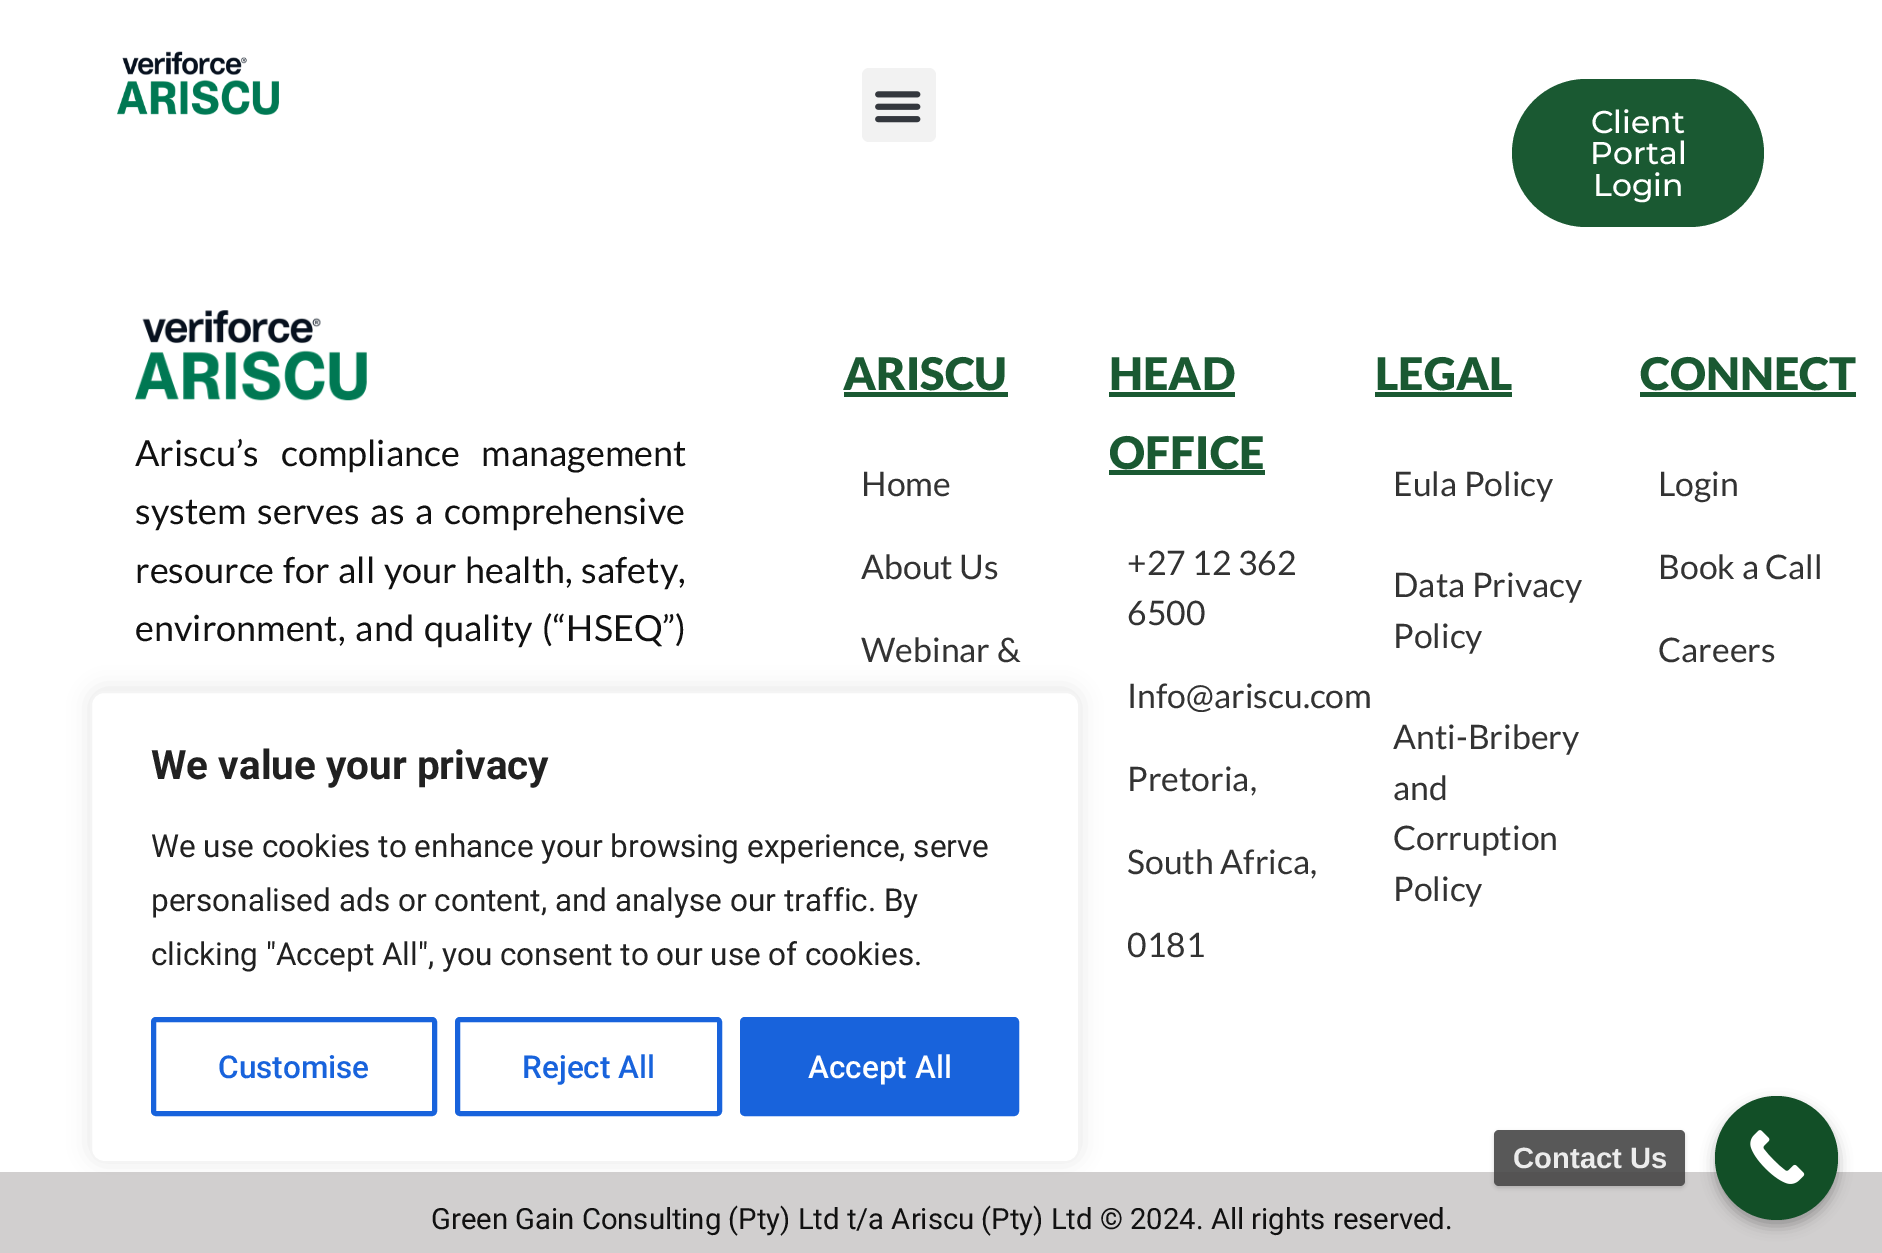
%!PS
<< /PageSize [1882 1253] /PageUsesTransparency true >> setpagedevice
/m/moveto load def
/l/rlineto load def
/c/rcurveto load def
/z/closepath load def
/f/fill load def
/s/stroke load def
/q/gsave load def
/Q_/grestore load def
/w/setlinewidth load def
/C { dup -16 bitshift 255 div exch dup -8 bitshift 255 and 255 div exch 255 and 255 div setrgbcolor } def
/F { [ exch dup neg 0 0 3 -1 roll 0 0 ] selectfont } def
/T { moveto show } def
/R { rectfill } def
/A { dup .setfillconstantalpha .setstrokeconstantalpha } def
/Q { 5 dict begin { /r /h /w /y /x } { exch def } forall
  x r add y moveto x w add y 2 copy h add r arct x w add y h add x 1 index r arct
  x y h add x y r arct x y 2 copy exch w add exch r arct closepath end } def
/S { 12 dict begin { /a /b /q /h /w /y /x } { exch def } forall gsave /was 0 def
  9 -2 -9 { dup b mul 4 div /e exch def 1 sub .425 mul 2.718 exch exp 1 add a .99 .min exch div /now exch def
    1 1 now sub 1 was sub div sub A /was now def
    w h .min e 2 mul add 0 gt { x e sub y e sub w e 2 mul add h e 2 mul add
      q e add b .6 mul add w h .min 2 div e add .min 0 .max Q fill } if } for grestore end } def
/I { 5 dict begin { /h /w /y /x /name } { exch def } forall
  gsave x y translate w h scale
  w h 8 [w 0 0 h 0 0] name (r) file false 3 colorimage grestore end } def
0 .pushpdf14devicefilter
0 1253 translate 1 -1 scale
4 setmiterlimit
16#FFFFFF C
0 0 1882 1253 R
(1.rgb) 117 51 162 64 I
16#F2F2F2 C
862 68 74 74 7 Q f
(2.rgb) 875 91 46 32 I
16#1A5932 C
1512 79 252 148 74 Q f
/Montserrat-Medium 31.5 F
16#FFFFFF C
(Client) 1591 133 T
(Portal) 1590 164 T
(Login) 1593 196 T
(3.rgb) 135 310 232 91 I
/Lato-Regular 36 F
16#111111 C
135 466 m 15 0 32 (Ariscu’s compliance management) widthshow
135 524 m 4 0 32 (system serves as a comprehensive) widthshow
135 583 m 1.75 0 32 (resource for all your health, safety,) widthshow
135 641 m 3 0 32 (environment, and quality \(“HSEQ”\)) widthshow
/Lato-Black 45 F
16#1A5932 C
(ARISCU) 843 390 T
844 392 164 5 R
/Lato-Regular 33.75 F
16#333333 C
(Home) 861 496 T
(About Us) 861 579 T
(Webinar &) 861 662 T
/Lato-Black 45 F
16#1A5932 C
(HEAD) 1109 390 T
1109 392 126 5 R
(OFFICE) 1109 469 T
1109 470 156 5 R
/Lato-Regular 33.75 F
16#333333 C
(+27 12 362) 1127 575 T
(6500) 1127 625 T
(Info@ariscu.com) 1127 708 T
(Pretoria,) 1127 791 T
(South Africa,) 1127 874 T
(0181) 1127 957 T
/Lato-Black 45 F
16#1A5932 C
(LEGAL) 1375 390 T
1375 392 137 5 R
/Lato-Regular 33.75 F
16#333333 C
(Eula Policy) 1393 496 T
(Data Privacy) 1393 597 T
(Policy) 1393 648 T
(Anti-Bribery) 1393 749 T
(and) 1393 800 T
(Corruption) 1393 850 T
(Policy) 1393 901 T
/Lato-Black 45 F
16#1A5932 C
(CONNECT) 1640 390 T
1640 392 216 5 R
/Lato-Regular 33.75 F
16#333333 C
(Login) 1658 496 T
(Book a Call) 1658 579 T
(Careers) 1658 662 T
16#D1CFCF C
0 1172 1882 81 R
/Roboto-Regular 29.25 F
16#111111 C
(Green Gain Consulting \(Pty\) Ltd t/a Ariscu \(Pty\) Ltd © 2024. All rights reserved.) 431 1229 T
16#ACABAB C
90 689 990 472 14 11 .3 S
16#FFFFFF C
91 692 988 470 13 Q q f Q_
16#F4F4F4 C
2 w
s
/Roboto-Bold 40.5 F
16#212121 C
(We value your privacy) 151 779 T
/Roboto-Regular 31.5 F
(We use cookies to enhance your browsing experience, serve) 151 857 T
(personalised ads or content, and analyse our traffic. By) 151 911 T
(clicking "Accept All", you consent to our use of cookies.) 151 965 T
16#1863DC C
5 w
153.5 1019.5 281 94 2.5 Q s
/Roboto-Medium 31.5 F
(Customise) 218 1078 T
457.5 1019.5 262 94 2.5 Q s
(Reject All) 522 1078 T
742.5 1019.5 274 94 2.5 Q q f Q_
s
16#FFFFFF C
(Accept All) 808 1078 T
16#000000 C
1715 1103 123 123 61.5 7 .3 S
16#124F27 C
1715 1096 123 124 61.5 Q f
(4.rgb) 1750 1130 55 54 I
q
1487 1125 m 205 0 l 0 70 l -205 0 l z 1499 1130 m 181 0 l 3 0 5 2 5 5 c 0 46 l 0 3 -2 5 -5 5 c -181 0 l -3 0 -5 -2 -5 -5 c 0 -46 l 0 -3 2 -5 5 -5 c z eoclip newpath
16#000000 C
1494 1132 191 56 5 2 .15 S
Q_
0.9 A
16#464646 C
1494 1130 191 56 5 Q f
/LiberationSans-Bold 29.25 F
1 A
16#ECECEC C
(Contact Us) 1513 1168 T
.poppdf14devicefilter showpage
